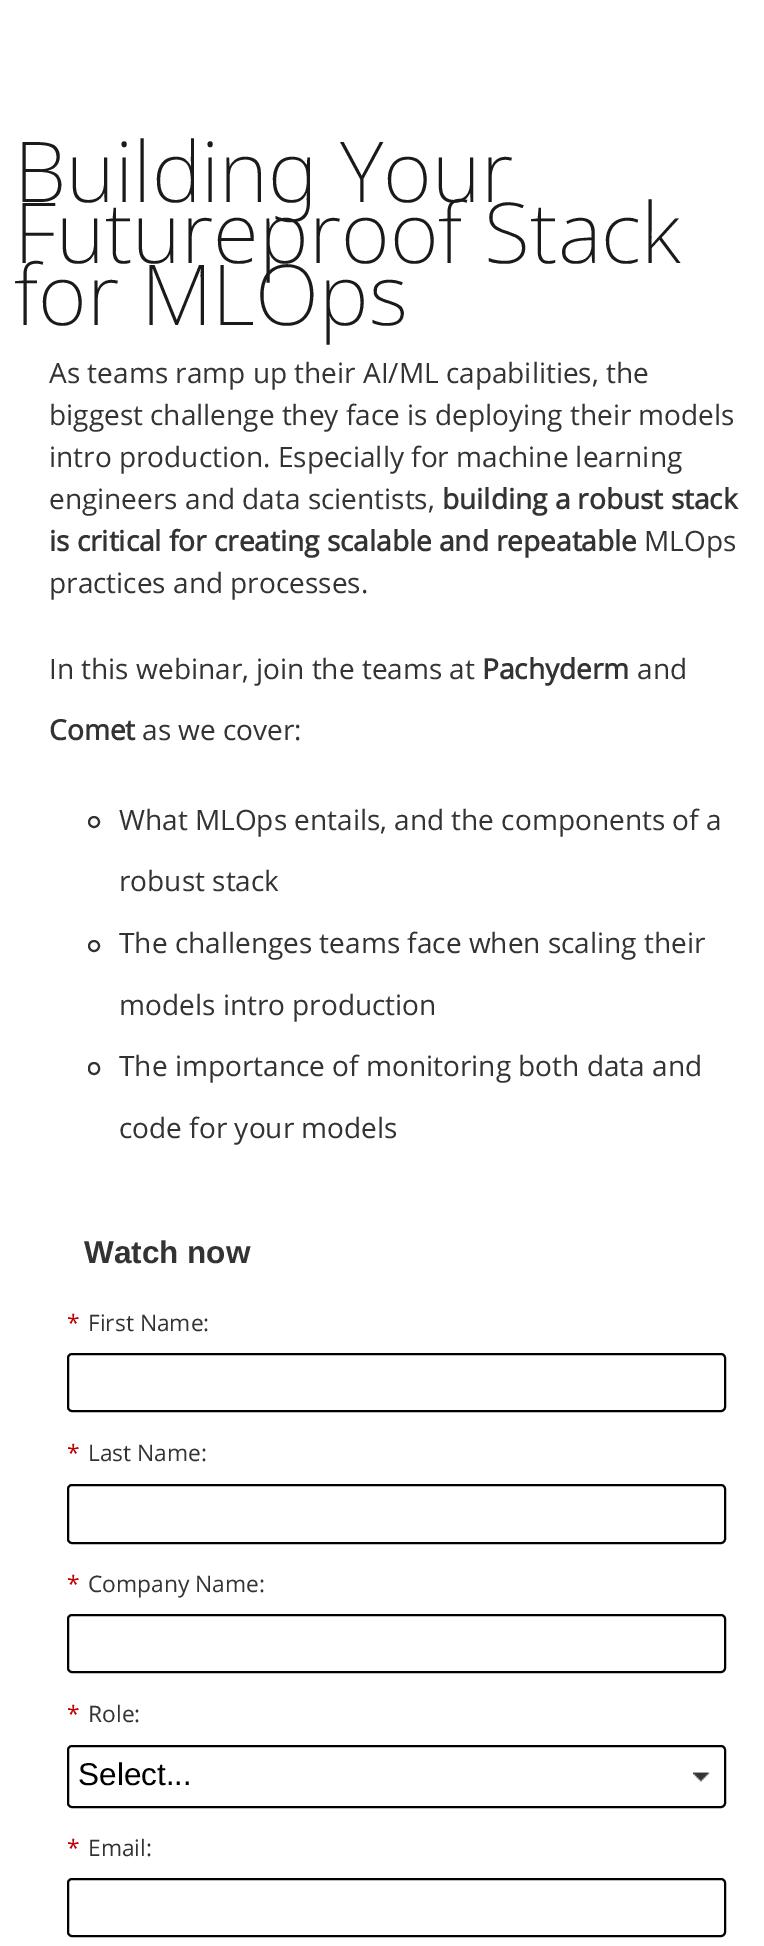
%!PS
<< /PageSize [764 1946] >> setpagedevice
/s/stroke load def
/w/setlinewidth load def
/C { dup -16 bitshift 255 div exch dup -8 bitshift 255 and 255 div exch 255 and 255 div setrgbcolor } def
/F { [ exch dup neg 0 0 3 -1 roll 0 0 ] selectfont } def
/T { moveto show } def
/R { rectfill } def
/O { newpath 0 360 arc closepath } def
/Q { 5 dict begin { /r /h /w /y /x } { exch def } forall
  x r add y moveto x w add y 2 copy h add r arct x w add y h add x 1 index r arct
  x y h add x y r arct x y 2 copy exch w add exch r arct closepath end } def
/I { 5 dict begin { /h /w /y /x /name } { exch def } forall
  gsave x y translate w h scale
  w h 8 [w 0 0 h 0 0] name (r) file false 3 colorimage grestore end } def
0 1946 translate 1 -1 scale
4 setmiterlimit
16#FFFFFF C
0 0 764 1946 R
/NotoSans-ExtraLight 84 F
16#1A1A1A C
(Building Your) 14 202 T
(Futureproof Stack) 14 263 T
(for MLOps) 14 325 T
/OpenSans-Regular 28 F
16#333333 C
(As teams ramp up their AI/ML capabilities, the) 49 383 T
(biggest challenge they face is deploying their models) 49 425 T
(intro production. Especially for machine learning) 49 467 T
(engineers and data scientists,) 49 509 T
/OpenSans-Bold 28 F
(building a robust stack) 442 509 T
(is critical for creating scalable and repeatable) 49 551 T
/OpenSans-Regular 28 F
(MLOps) 644 551 T
(practices and processes.) 49 593 T
(In this webinar, join the teams at) 49 679 T
/OpenSans-Bold 28 F
(Pachyderm) 482 679 T
/OpenSans-Regular 28 F
(and) 637 679 T
/OpenSans-Bold 28 F
(Comet) 49 740 T
/OpenSans-Regular 28 F
(as we cover:) 142 740 T
2 w
94 822 5 O s
(What MLOps entails, and the components of a) 119 830 T
(robust stack) 119 891 T
94 946 5 O s
(The challenges teams face when scaling their) 119 953 T
(models intro production) 119 1015 T
89 1063 10 11 5 Q s
(The importance of monitoring both data and) 119 1076 T
(code for your models) 119 1138 T
/LiberationSans-Bold 31.5 F
(Watch now) 84 1263 T
/OpenSans-Regular 22.75 F
16#BF0000 C
(*) 67 1331 T
16#333333 C
(First Name:) 88 1331 T
16#000000 C
68 1354 657 57 4 Q s
16#BF0000 C
(*) 67 1461 T
16#333333 C
(Last Name:) 88 1461 T
16#000000 C
68 1485 657 58 4 Q s
16#BF0000 C
(*) 67 1592 T
16#333333 C
(Company Name:) 88 1592 T
16#000000 C
68 1615 657 57 4 Q s
16#BF0000 C
(*) 67 1722 T
16#333333 C
(Role:) 88 1722 T
(1.rgb) 693 1772 17 10 I
16#000000 C
68 1746 657 61 4 Q s
/LiberationSans-Regular 31.5 F
(Select...) 78 1785 T
/OpenSans-Regular 22.75 F
16#BF0000 C
(*) 67 1856 T
16#333333 C
(Email:) 88 1856 T
16#000000 C
68 1879 657 57 4 Q s
showpage
